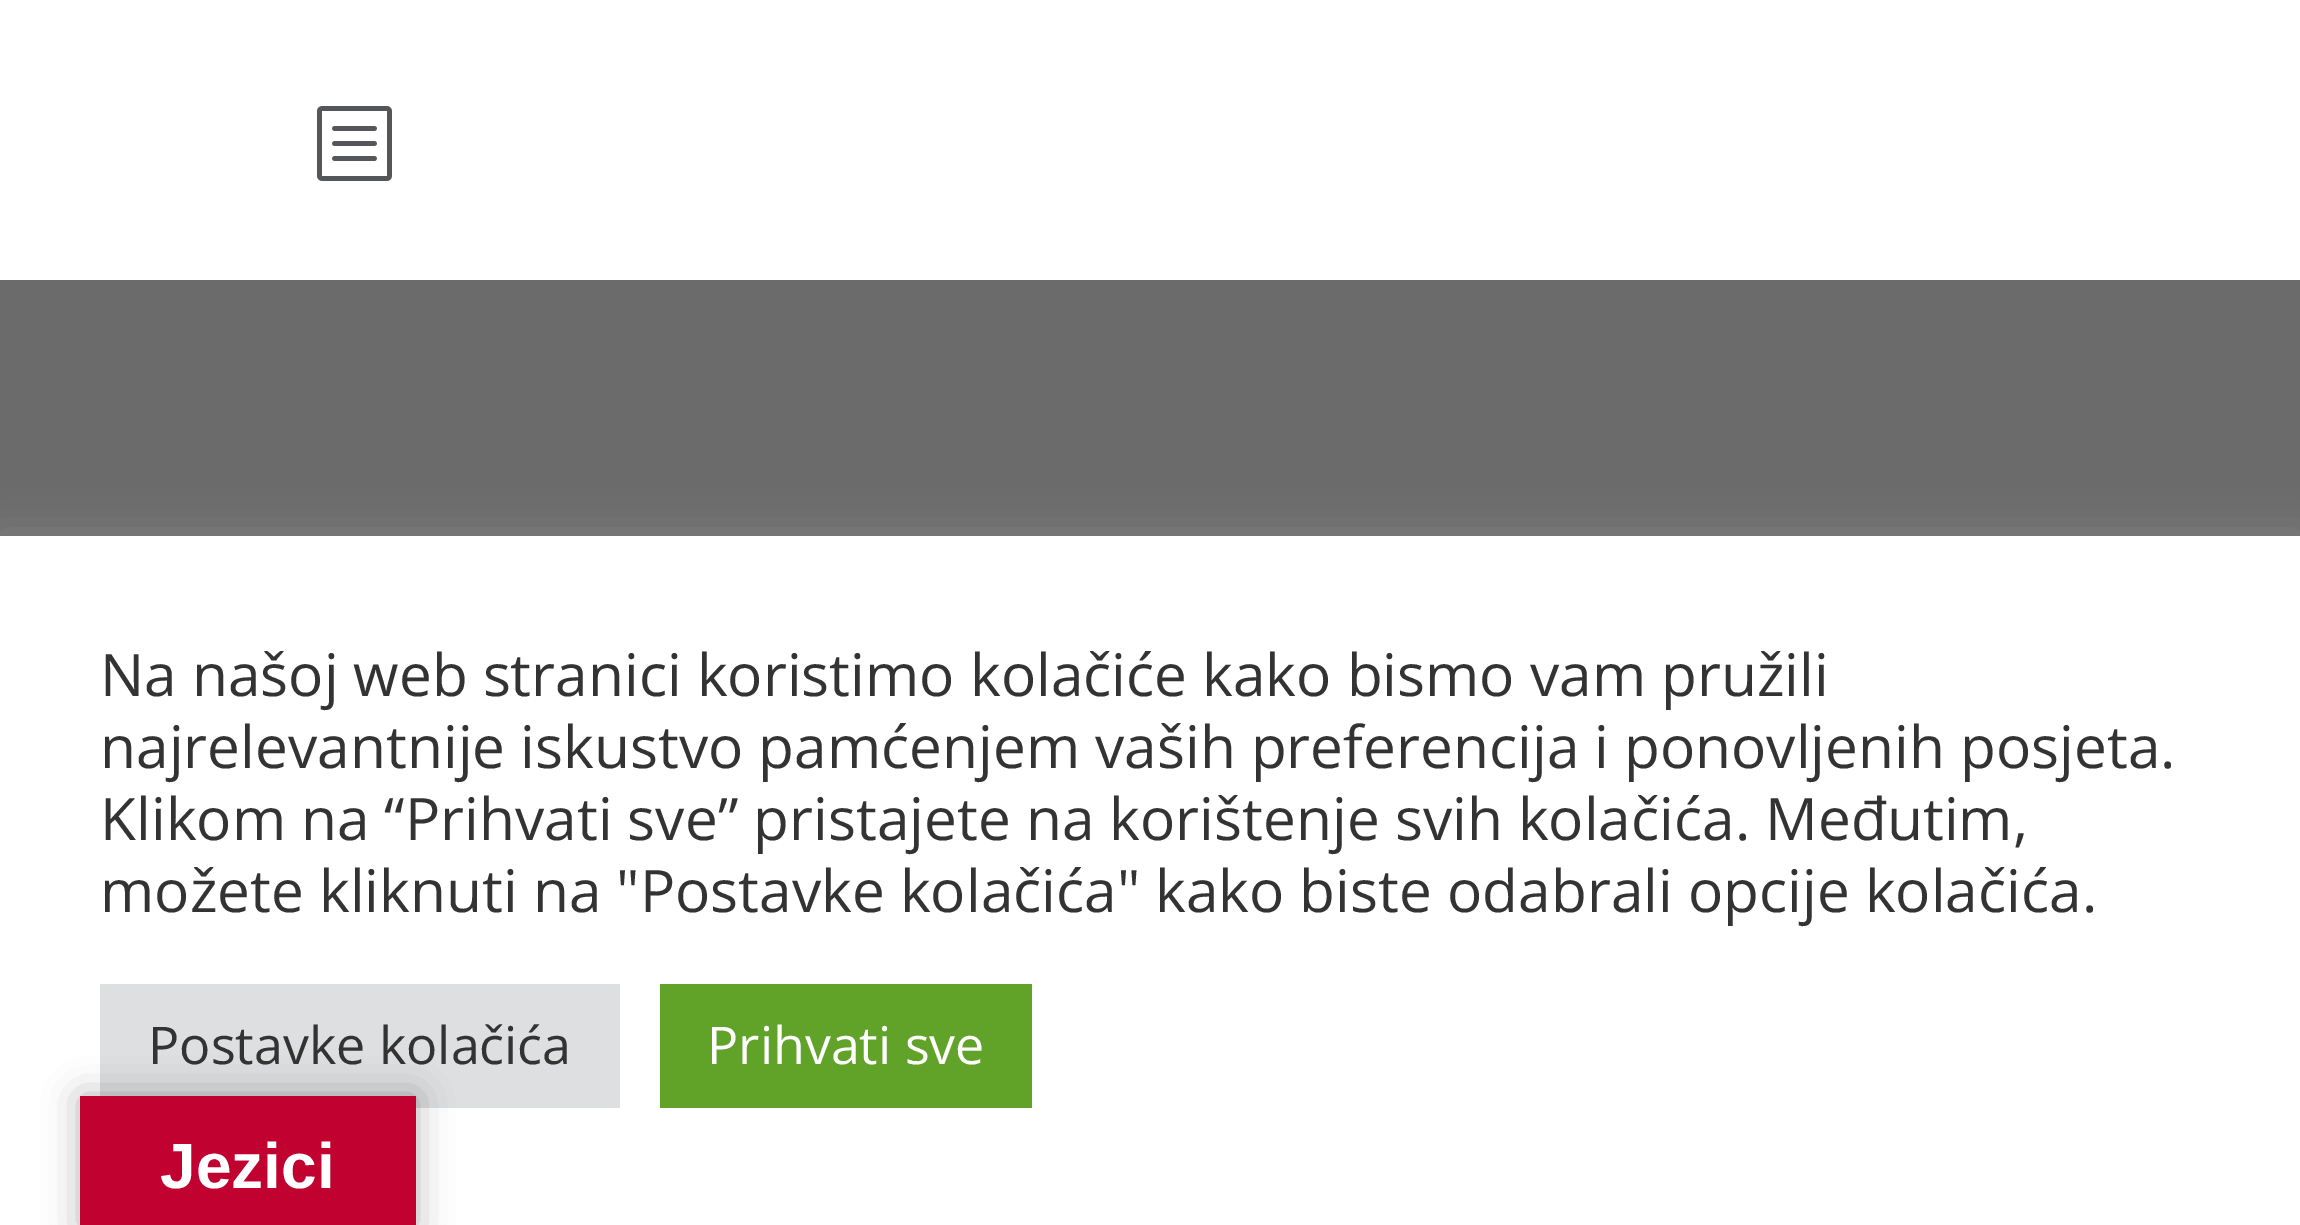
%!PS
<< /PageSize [2300 1225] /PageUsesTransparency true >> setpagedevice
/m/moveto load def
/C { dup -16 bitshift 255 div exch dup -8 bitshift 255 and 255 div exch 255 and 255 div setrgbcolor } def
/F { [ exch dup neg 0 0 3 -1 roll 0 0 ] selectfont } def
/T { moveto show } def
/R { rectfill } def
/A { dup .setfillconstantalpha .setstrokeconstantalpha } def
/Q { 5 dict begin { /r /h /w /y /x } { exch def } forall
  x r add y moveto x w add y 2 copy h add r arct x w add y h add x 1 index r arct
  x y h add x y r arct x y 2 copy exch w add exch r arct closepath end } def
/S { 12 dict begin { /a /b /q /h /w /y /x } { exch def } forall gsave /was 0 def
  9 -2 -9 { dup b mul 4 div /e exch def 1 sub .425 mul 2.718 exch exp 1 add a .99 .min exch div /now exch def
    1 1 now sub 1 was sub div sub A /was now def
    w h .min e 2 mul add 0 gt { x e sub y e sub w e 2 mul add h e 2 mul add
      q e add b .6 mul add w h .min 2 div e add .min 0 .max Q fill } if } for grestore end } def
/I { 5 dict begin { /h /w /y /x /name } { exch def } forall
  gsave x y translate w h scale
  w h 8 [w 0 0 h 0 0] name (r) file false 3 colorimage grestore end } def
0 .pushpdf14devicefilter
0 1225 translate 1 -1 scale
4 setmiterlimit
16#6B6B6B C
0 0 2300 1225 R
16#FFFFFF C
0 0 2300 280 R
(1.rgb) 317 106 75 75 I
16#ACABAB C
0 532 2300 692 0 20 .3 S
16#FFFFFF C
0 536 2300 689 R
/OpenSans-Regular 58.65 F
16#333333 C
100 696 m -.25 0 32 (Na našoj web stranici koristimo kolačiće kako bismo vam pružili) widthshow
100 768 m -.25 0 32 (najrelevantnije iskustvo pamćenjem vaših preferencija i ponovljenih posjeta.) widthshow
100 840 m -.25 0 32 (Klikom na “Prihvati sve” pristajete na korištenje svih kolačića. Međutim,) widthshow
100 912 m -.25 0 32 (možete kliknuti na "Postavke kolačića" kako biste odabrali opcije kolačića.) widthshow
16#DEDFE0 C
100 984 520 124 R
/OpenSans-Regular 52 F
16#333333 C
(Postavke kolačića) 148 1064 T
16#61A229 C
660 984 372 124 R
16#FFFFFF C
(Prihvati sve) 707 1064 T
16#000000 C
80 1096 336 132 0 18 .3 S
16#C10230 C
80 1096 336 129 R
/LiberationSans-Bold 64 F
16#FFFFFF C
(Jezici) 160 1188 T
.poppdf14devicefilter showpage
